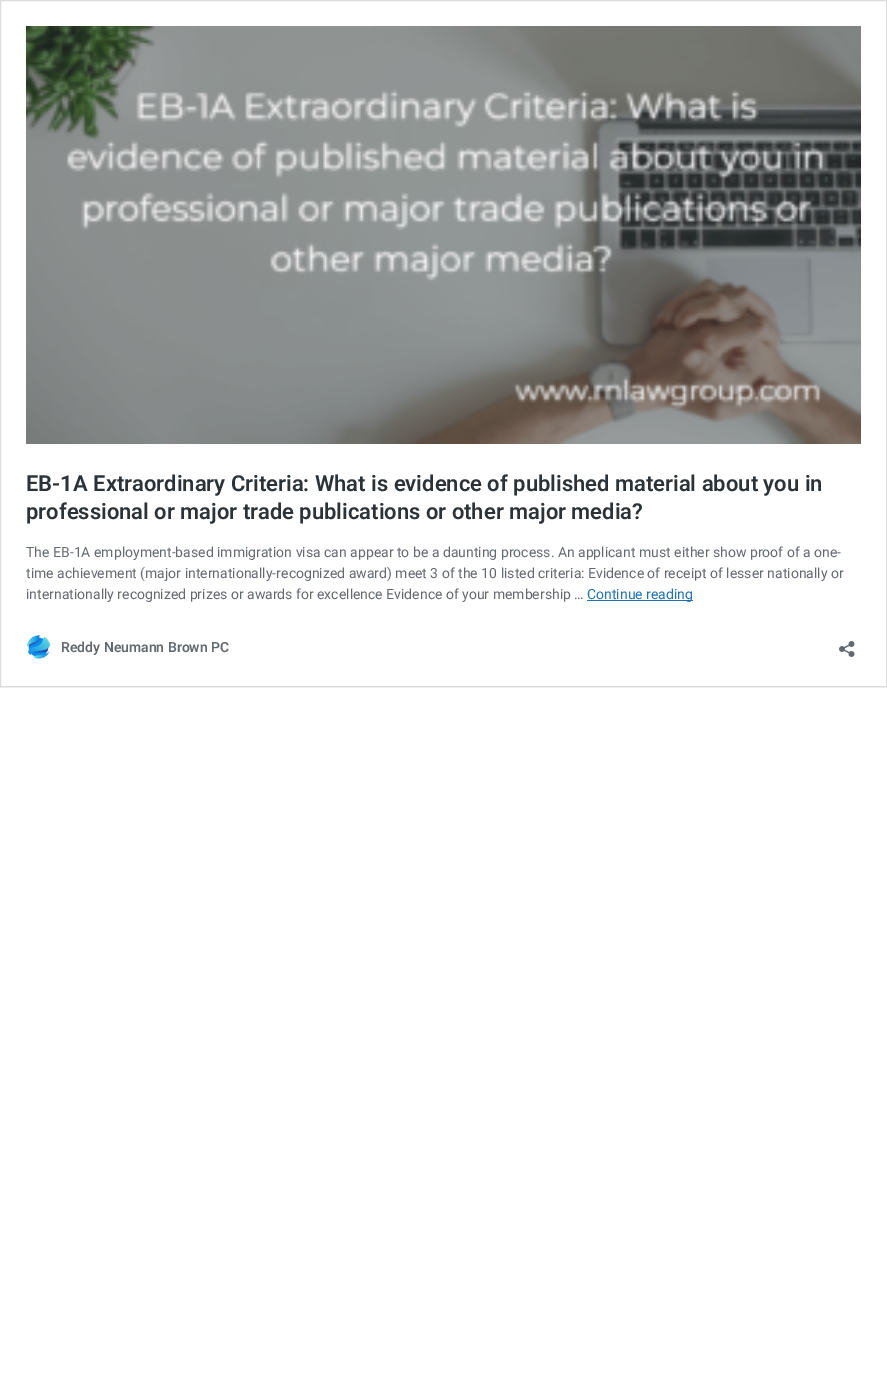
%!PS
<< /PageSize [887 1393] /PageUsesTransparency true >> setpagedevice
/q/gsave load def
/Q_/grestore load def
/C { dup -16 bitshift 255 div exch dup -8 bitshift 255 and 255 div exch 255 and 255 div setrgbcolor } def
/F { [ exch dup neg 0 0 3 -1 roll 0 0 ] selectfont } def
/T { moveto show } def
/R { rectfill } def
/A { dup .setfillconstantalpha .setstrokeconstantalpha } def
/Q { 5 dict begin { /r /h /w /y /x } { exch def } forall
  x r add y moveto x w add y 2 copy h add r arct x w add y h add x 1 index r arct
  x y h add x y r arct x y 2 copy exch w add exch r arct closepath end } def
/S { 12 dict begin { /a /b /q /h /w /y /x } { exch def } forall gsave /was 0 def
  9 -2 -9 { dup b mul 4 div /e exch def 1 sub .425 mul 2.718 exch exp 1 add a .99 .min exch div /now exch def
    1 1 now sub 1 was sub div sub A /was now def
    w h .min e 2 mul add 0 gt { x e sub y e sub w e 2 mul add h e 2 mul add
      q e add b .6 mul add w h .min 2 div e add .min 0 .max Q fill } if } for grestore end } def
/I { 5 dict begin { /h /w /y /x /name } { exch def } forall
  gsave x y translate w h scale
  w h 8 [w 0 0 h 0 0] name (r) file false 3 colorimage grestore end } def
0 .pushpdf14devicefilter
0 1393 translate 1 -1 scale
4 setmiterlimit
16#FFFFFF C
0 0 887 1393 R
q
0 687 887 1 rectclip
16#000000 C
0 1 887 687 0 .5 .05 S
Q_
16#DCDCDE C
.5 .5 886 686 rectstroke
(1.rgb) 26 26 835 418 I
/Roboto-SemiBold 22 F
16#2C3338 C
(EB-1A Extraordinary Criteria: What is evidence of published material about you in) 26 491 T
(professional or major trade publications or other major media?) 26 519 T
/Roboto-Regular 14 F
16#646970 C
(The EB-1A employment-based immigration visa can appear to be a daunting process. An applicant must either show proof of a one-) 26 557 T
(time achievement \(major internationally-recognized award\) meet 3 of the 10 listed criteria: Evidence of receipt of lesser nationally or) 26 578 T
(internationally recognized prizes or awards for excellence Evidence of your membership …) 26 599 T
16#2271B1 C
587 600 106 1 R
(Continue reading) 587 599 T
(2.rgb) 26 635 25 24 I
/Roboto-SemiBold 14 F
16#646970 C
(Reddy Neumann Brown PC) 61 652 T
(3.rgb) 839 641 16 16 I
.poppdf14devicefilter showpage
